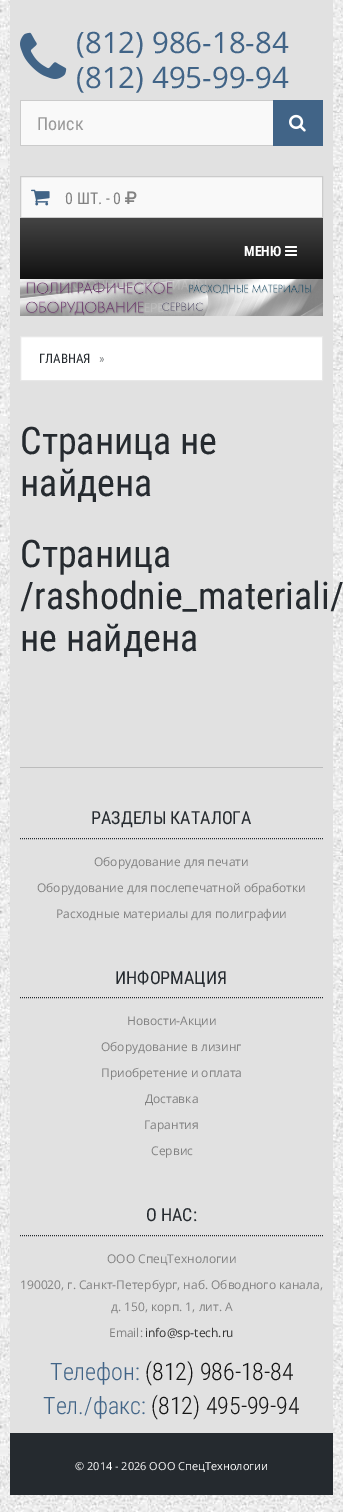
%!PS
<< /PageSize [343 1512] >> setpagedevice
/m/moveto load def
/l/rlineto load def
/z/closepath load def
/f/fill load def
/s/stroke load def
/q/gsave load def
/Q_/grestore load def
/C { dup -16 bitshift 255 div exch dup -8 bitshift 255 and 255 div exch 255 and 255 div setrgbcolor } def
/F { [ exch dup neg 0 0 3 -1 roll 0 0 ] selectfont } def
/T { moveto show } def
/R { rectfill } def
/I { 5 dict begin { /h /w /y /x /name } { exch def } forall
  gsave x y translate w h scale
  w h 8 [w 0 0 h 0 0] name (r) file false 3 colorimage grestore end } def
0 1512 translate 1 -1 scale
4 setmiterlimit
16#FFFFFF C
0 0 343 1512 R
(1.rgb) 0 0 343 1512 I
16#E1E1E1 C
10 0 323 1433 R
(2.rgb) 20 32 47 47 I
/OpenSans-Regular 29.5 F
16#416487 C
(\(812\) 986-18-84) 76 53 T
(\(812\) 495-99-94) 76 88 T
16#F9F9F9 C
21 101 252 44 R
16#CBCBCB C
20 100 253 1 R
20 145 253 1 R
20 100 1 46 R
/RobotoCondensed-Regular 18 F
16#999999 C
(Поиск) 37 130 T
16#416487 C
273 100 50 46 R
(3.rgb) 289 114 17 18 I
16#F9F9F9 C
20.5 176.5 m 302 0 l 0 41 l -302 0 l z q f Q_
16#CBCBCB C
s
(4.rgb) 31 189 19 17 I
/RobotoCondensed-Regular 16 F
16#828282 C
(0 ШТ. - 0) 65 204 T
(5.rgb) 125 191 12 13 I
q 20 218 m 303 0 l 0 61 l -303 0 l z clip newpath
<< /ShadingType 2 /ColorSpace /DeviceRGB /Coords [172 218 172 279] /Extend [true true] /Function << /FunctionType 2 /Domain [0 1] /C0 [.267 .267 .267] /C1 [.067 .067 .067] /N 1 >> >> shfill Q_
/RobotoCondensed-Bold 14 F
16#FFFFFF C
(МЕНЮ) 244 256 T
(6.rgb) 285 246 12 10 I
(7.rgb) 20 279 303 37 I
20.5 336.5 m 302 0 l 0 44 l -302 0 l z q f Q_
16#E8E8E8 C
s
/RobotoCondensed-Regular 13 F
16#252A2F C
(ГЛАВНАЯ) 39 363 T
16#878A8C C
(») 99 363 T
/RobotoCondensed-Regular 38 F
16#252A2F C
(Страница не) 20 454 T
(найдена) 20 496 T
(Страница) 20 567 T
(/rashodnie_materiali/) 20 609 T
(не найдена) 20 651 T
16#BCBCBC C
20 767 303 1 R
16#252A2F C
[1 1] 0 setdash
20 838.5 m 303 0 l s
/RobotoCondensed-Regular 18 F
(РАЗДЕЛЫ КАТАЛОГА) 91 824 T
/OpenSans-Regular 12 F
16#828282 C
(Оборудование для печати) 94 866 T
(Оборудование для послепечатной обработки) 37 892 T
(Расходные материалы для полиграфии) 56 918 T
16#252A2F C
20 997.5 m 303 0 l s
/RobotoCondensed-Regular 18 F
(ИНФОРМАЦИЯ) 115 984 T
/OpenSans-Regular 12 F
16#828282 C
(Новости-Акции) 127 1025 T
(Оборудование в лизинг) 101 1051 T
(Приобретение и оплата) 101 1077 T
(Доставка) 145 1103 T
(Гарантия) 144 1129 T
(Сервис) 151 1155 T
16#252A2F C
20 1235.5 m 303 0 l s
/RobotoCondensed-Regular 18 F
(О НАС:) 146 1221 T
/OpenSans-Regular 12 F
16#828282 C
(ООО СпецТехнологии) 107 1263 T
(190020, г. Санкт-Петербург, наб. Обводного канала,) 20 1289 T
(д. 150, корп. 1, лит. А) 111 1311 T
(Email:) 109 1337 T
16#333333 C
(info@sp-tech.ru) 145 1337 T
/RobotoCondensed-Light 24 F
16#416487 C
(Телефон:) 50 1380 T
16#151515 C
(\(812\) 986-18-84) 145 1380 T
16#416487 C
(Тел./факс:) 43 1414 T
16#151515 C
(\(812\) 495-99-94) 151 1414 T
16#252A2F C
10 1433 323 62 R
/OpenSans-Regular 11 F
16#FFFFFF C
(© 2014 - 2026 ООО СпецТехнологии) 75 1470 T
showpage
